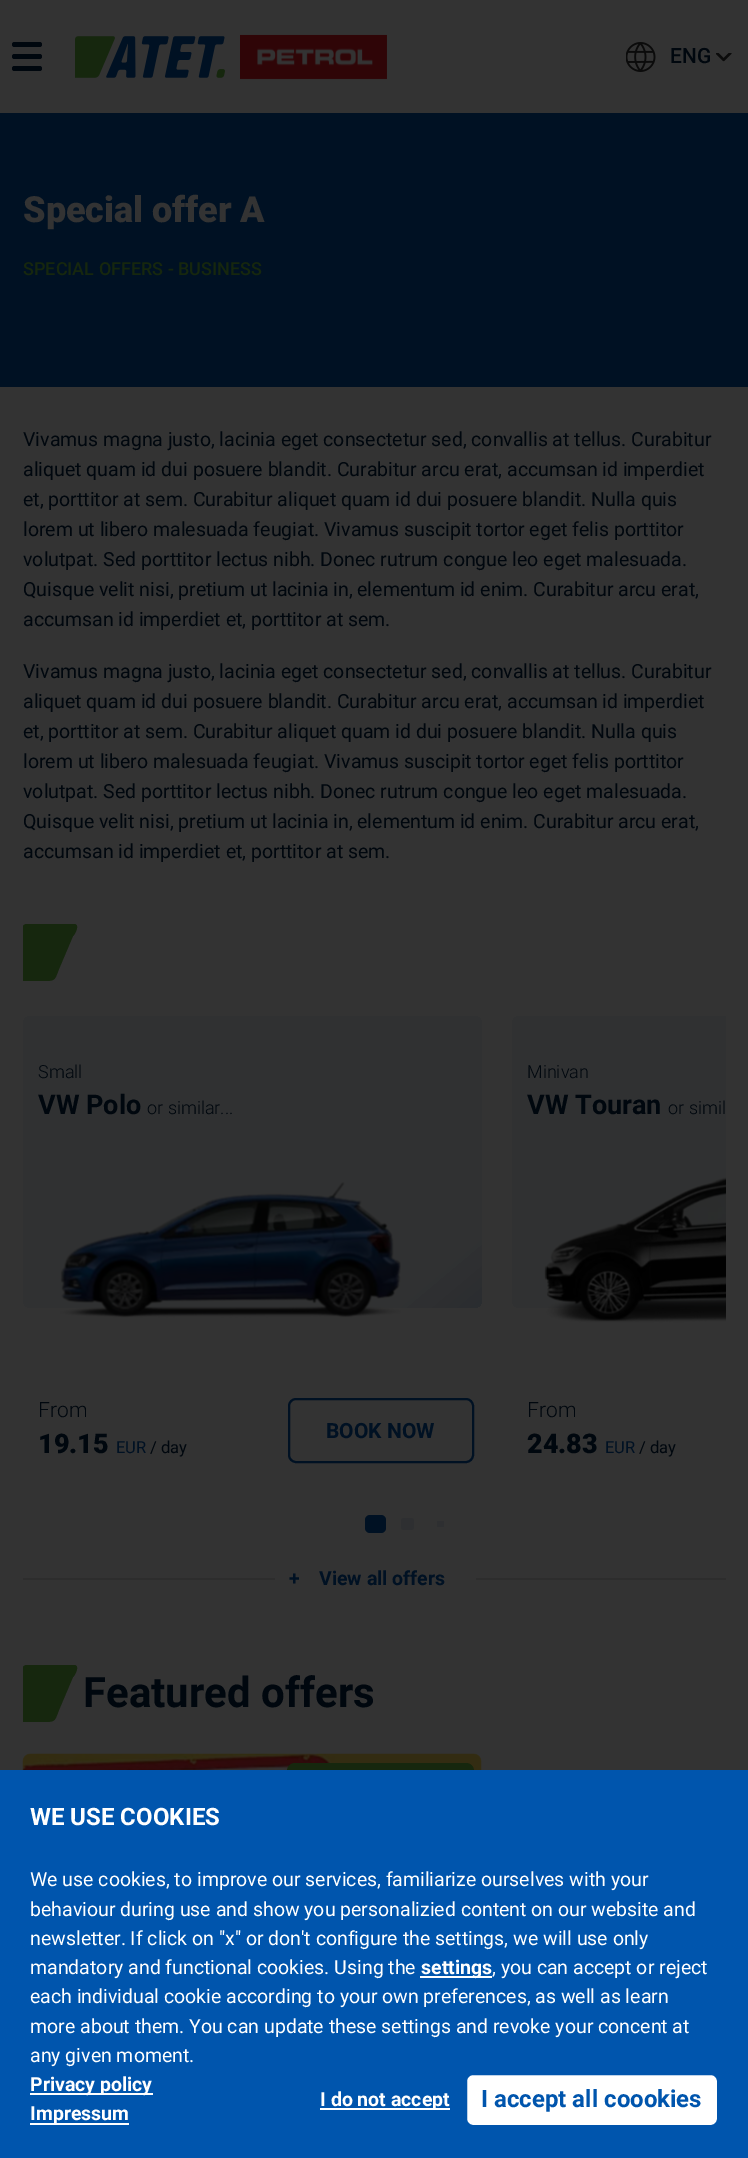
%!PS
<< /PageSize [748 2158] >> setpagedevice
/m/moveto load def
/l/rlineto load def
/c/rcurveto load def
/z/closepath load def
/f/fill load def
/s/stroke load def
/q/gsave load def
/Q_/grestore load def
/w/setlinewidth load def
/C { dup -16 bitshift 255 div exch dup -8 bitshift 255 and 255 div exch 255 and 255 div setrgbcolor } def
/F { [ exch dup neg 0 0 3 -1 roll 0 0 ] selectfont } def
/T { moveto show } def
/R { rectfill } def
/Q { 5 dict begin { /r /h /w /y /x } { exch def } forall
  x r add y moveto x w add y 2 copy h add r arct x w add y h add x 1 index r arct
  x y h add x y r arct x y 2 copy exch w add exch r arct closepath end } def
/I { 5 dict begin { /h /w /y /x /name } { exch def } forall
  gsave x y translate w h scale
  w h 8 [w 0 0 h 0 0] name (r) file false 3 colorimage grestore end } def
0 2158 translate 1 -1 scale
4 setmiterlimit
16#333333 C
0 0 748 2158 R
16#00070E C
12 42 30 5 2.5 Q f
12 54 30 5 2.5 Q f
12 66 30 5 2.5 Q f
(1.rgb) 75 36 150 42 I
(2.rgb) 240 34 147 46 I
(3.rgb) 626 42 30 30 I
/Roboto-Medium 21 F
(ENG) 670 63 T
(4.rgb) 716 53 16 9 I
16#001123 C
0 113 748 274 R
/Roboto-Black 36 F
16#333333 C
(Special offer A) 23 222 T
/Roboto-Medium 18 F
16#16270E C
(SPECIAL OFFERS - BUSINESS) 23 275 T
/Roboto-Regular 19.5 F
16#00070E C
(Vivamus magna justo, lacinia eget consectetur sed, convallis at tellus. Curabitur) 23 446 T
(aliquet quam id dui posuere blandit. Curabitur arcu erat, accumsan id imperdiet) 23 476 T
(et, porttitor at sem. Curabitur aliquet quam id dui posuere blandit. Nulla quis) 23 506 T
(lorem ut libero malesuada feugiat. Vivamus suscipit tortor eget felis porttitor) 23 536 T
(volutpat. Sed porttitor lectus nibh. Donec rutrum congue leo eget malesuada.) 23 566 T
(Quisque velit nisi, pretium ut lacinia in, elementum id enim. Curabitur arcu erat,) 23 596 T
(accumsan id imperdiet et, porttitor at sem.) 23 626 T
(Vivamus magna justo, lacinia eget consectetur sed, convallis at tellus. Curabitur) 23 678 T
(aliquet quam id dui posuere blandit. Curabitur arcu erat, accumsan id imperdiet) 23 708 T
(et, porttitor at sem. Curabitur aliquet quam id dui posuere blandit. Nulla quis) 23 738 T
(lorem ut libero malesuada feugiat. Vivamus suscipit tortor eget felis porttitor) 23 768 T
(volutpat. Sed porttitor lectus nibh. Donec rutrum congue leo eget malesuada.) 23 798 T
(Quisque velit nisi, pretium ut lacinia in, elementum id enim. Curabitur arcu erat,) 23 828 T
(accumsan id imperdiet et, porttitor at sem.) 23 858 T
q
23 924 55 57 rectclip
16#16270E C
22 981 m 23 0 l 11 0 10 -2 14 -12 c 14 -33 l 1 0 8 -12 1 -12 c -39 0 l -3 0 -12 -2 -13 4 c z f
Q_
q 23 1016 459 292 8 Q clip newpath
<< /ShadingType 2 /ColorSpace /DeviceRGB /Coords [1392 1700 489 624] /Extend [true true] /Function << /FunctionType 3 /Domain [0 1] /Functions [<< /FunctionType 2 /Domain [0 1] /C0 [.004 .051 .102] /C1 [0 .067 .137] /N 1 >> << /FunctionType 2 /Domain [0 1] /C0 [0 .067 .137] /C1 [.188 .192 .196] /N 1 >> << /FunctionType 2 /Domain [0 1] /C0 [.188 .192 .196] /C1 [.188 .192 .196] /N 1 >>] /Bounds [.33 .67] /Encode [0 1 0 1 0 1] >> >> shfill Q_
/Roboto-Light 18 F
(Small) 38 1078 T
/Roboto-Bold 27 F
(VW Polo) 38 1114 T
/Roboto-Light 18 F
(or similar...) 147 1114 T
(5.rgb) 60 1182 341 136 I
/Roboto-Light 21 F
(From) 38 1417 T
/Roboto-Black 27 F
(19.15) 38 1453 T
/Roboto-Regular 16.5 F
16#001123 C
(EUR) 116 1453 T
16#00070E C
(/ day) 150 1453 T
16#001123 C
2 w
289 1399 184 63 7 Q s
/Roboto-Bold 21 F
(BOOK NOW) 326 1438 T
q 520 1016 m 206 0 l 0 292 l -206 0 l -4.5 0 -8 -3.5 -8 -8 c 0 -276 l 0 -4.5 3.5 -8 8 -8 c z clip newpath
<< /ShadingType 2 /ColorSpace /DeviceRGB /Coords [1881 1700 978 624] /Extend [true true] /Function << /FunctionType 3 /Domain [0 1] /Functions [<< /FunctionType 2 /Domain [0 1] /C0 [.004 .051 .102] /C1 [0 .067 .137] /N 1 >> << /FunctionType 2 /Domain [0 1] /C0 [0 .067 .137] /C1 [.188 .192 .196] /N 1 >> << /FunctionType 2 /Domain [0 1] /C0 [.188 .192 .196] /C1 [.188 .192 .196] /N 1 >>] /Bounds [.33 .67] /Encode [0 1 0 1 0 1] >> >> shfill Q_
/Roboto-Light 18 F
16#00070E C
(Minivan) 527 1078 T
/Roboto-Bold 27 F
(VW Touran) 527 1114 T
/Roboto-Light 18 F
(or simil) 668 1114 T
(6.rgb) 544 1177 182 146 I
/Roboto-Light 21 F
(From) 527 1417 T
/Roboto-Black 27 F
(24.83) 527 1453 T
/Roboto-Regular 16.5 F
16#001123 C
(EUR) 605 1453 T
16#00070E C
(/ day) 639 1453 T
16#001123 C
365 1515 21 18 5 Q f
16#2E2F31 C
401 1518 13 12 3 Q f
437 1521 7 6 1.5 Q f
16#2D2D2D C
23 1578 703 2 R
16#333333 C
275 1578 201 2 R
/Roboto-Bold 19.5 F
16#001123 C
(+) 289 1585 T
(View all offers) 319 1585 T
q
23 1665 55 57 rectclip
16#16270E C
22 1722 m 23 0 l 11 0 10 -2 14 -12 c 14 -33 l 1 0 8 -12 1 -12 c -39 0 l -3 0 -12 -2 -13 4 c z f
Q_
/Roboto-Bold 42 F
16#00070E C
(Featured offers) 83 1707 T
(7.rgb) 22 1753 460 17 I
16#16270E C
287 1763 187 73 8 Q f
q 520 1748 m 206 0 l 0 367 l -206 0 l -4.5 0 -8 -3.5 -8 -8 c 0 -351 l 0 -4.5 3.5 -8 8 -8 c z clip newpath
<< /ShadingType 2 /ColorSpace /DeviceRGB /Coords [741 2115 741 1748] /Extend [true true] /Function << /FunctionType 3 /Domain [0 1] /Functions [<< /FunctionType 2 /Domain [0 1] /C0 [0 .027 .055] /C1 [.102 .114 .125] /N 1 >> << /FunctionType 2 /Domain [0 1] /C0 [.102 .114 .125] /C1 [.2 .2 .2] /N 1 >> << /FunctionType 2 /Domain [0 1] /C0 [.2 .2 .2] /C1 [.2 .2 .2] /N 1 >>] /Bounds [.33 .67] /Encode [0 1 0 1 0 1] >> >> shfill Q_
16#0055AD C
0 1770 748 388 R
/Roboto-Bold 24 F
16#FFFFFF C
(WE USE COOKIES) 30 1825 T
/Roboto-Regular 19.5 F
(We use cookies, to improve our services, familiarize ourselves with your) 30 1886 T
(behaviour during use and show you personalizied content on our website and) 30 1916 T
(newsletter. If click on "x" or don't configure the settings, we will use only) 30 1945 T
(mandatory and functional cookies. Using the) 30 1974 T
420 1976 72 2 R
/Roboto-Bold 19.5 F
(settings) 421 1974 T
/Roboto-Regular 19.5 F
(, you can accept or reject) 492 1974 T
(each individual cookie according to your own preferences, as well as learn) 30 2003 T
(more about them. You can update these settings and revoke your concent at) 30 2033 T
(any given moment.) 30 2062 T
30 2093 123 2 R
/Roboto-Bold 19.5 F
(Privacy policy) 30 2091 T
30 2123 99 2 R
(Impressum) 30 2120 T
320 2108 130 2 R
(I do not accept) 320 2106 T
466 2074 252 52 7 Q q f Q_
16#0055AD C
s
/Roboto-Bold 24 F
(I accept all coookies) 481 2107 T
showpage
